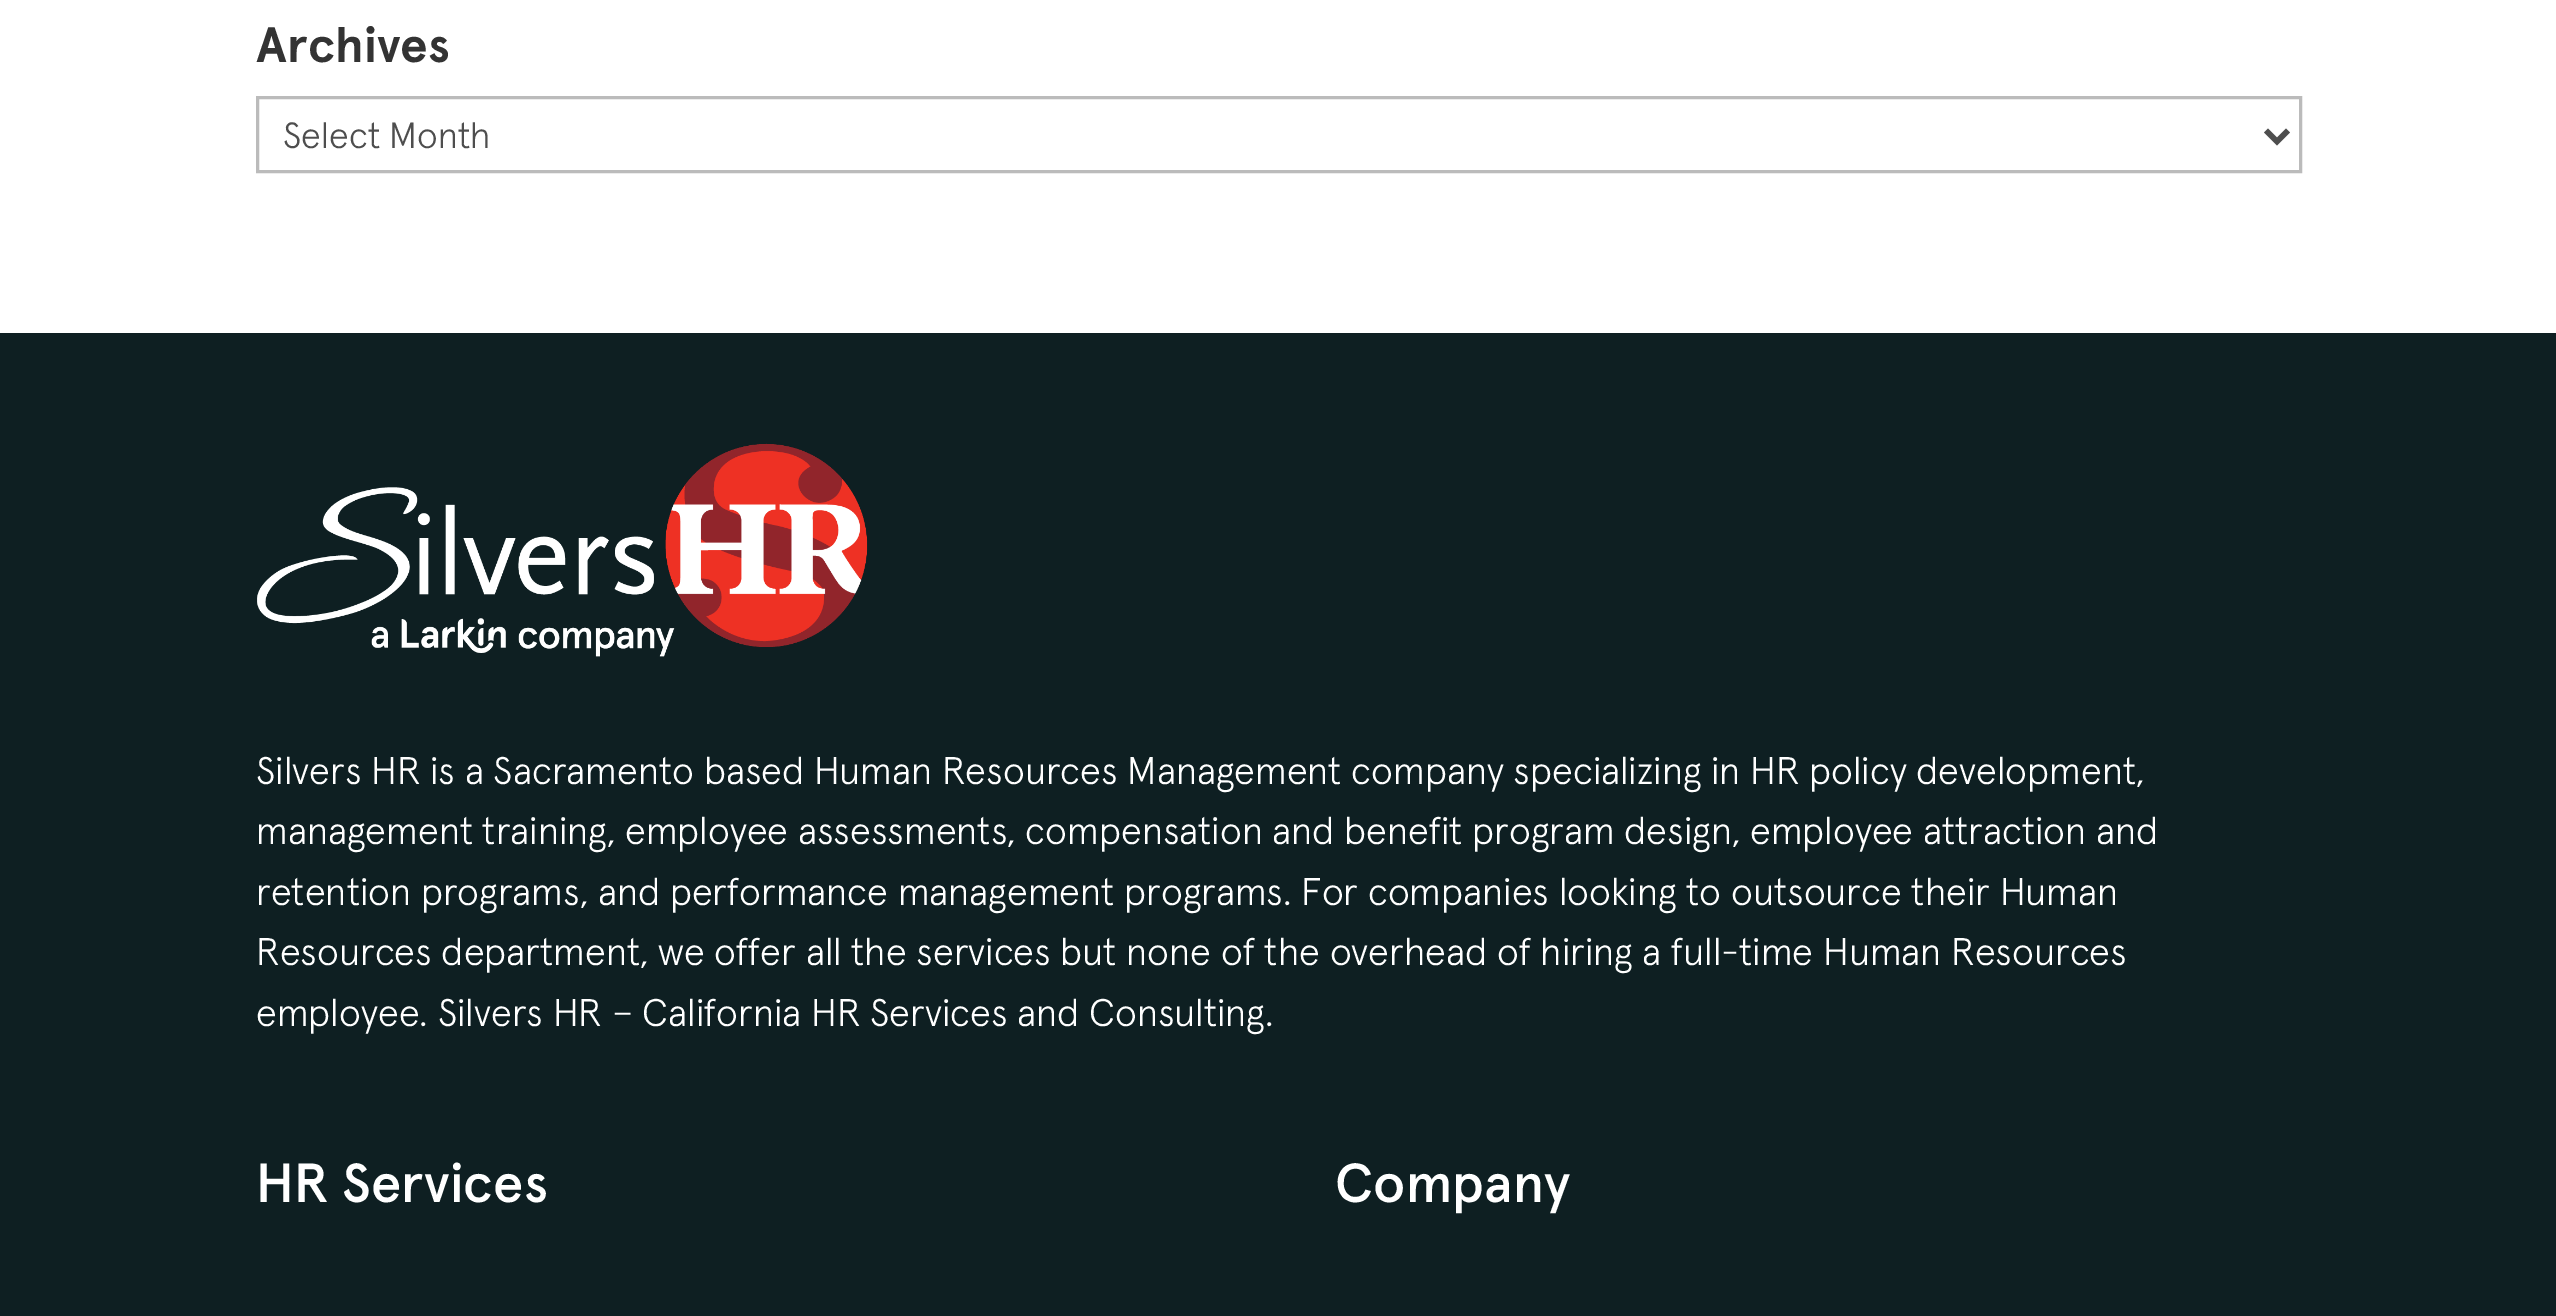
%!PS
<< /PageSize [2556 1316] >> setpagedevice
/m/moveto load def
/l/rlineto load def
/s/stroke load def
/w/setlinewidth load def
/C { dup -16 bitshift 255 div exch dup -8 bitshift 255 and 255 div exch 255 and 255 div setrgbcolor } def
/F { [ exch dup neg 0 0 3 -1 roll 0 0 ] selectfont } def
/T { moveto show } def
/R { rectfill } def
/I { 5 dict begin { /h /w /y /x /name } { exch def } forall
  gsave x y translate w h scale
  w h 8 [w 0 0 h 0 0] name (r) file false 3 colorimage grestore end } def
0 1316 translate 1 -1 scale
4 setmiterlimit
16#FFFFFF C
0 0 2556 1316 R
/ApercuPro-Bold 49.5 F
16#333333 C
(Archives) 256 62 T
16#BBBBBB C
3 w
257.5 97.5 2043 74 rectstroke
16#4E4E4E C
5.5 w
2266 130.5 m 11 11 l 11 -11 l s
/ApercuPro-Light 36.5 F
(Select Month) 283 148 T
16#0E1F22 C
0 333 2556 983 R
(1.rgb) 257 443 611 214 I
/ApercuPro-Light 38.5 F
16#FFFFFF C
(Silvers HR is a Sacramento based Human Resources Management company specializing in HR policy development,) 256 784 T
(management training, employee assessments, compensation and benefit program design, employee attraction and) 256 844 T
(retention programs, and performance management programs. For companies looking to outsource their Human) 256 905 T
(Resources department, we offer all the services but none of the overhead of hiring a full-time Human Resources) 256 965 T
(employee. Silvers HR – California HR Services and Consulting.) 256 1026 T
/ApercuPro-Medium 55 F
(HR Services) 256 1202 T
(Company) 1335 1202 T
showpage
